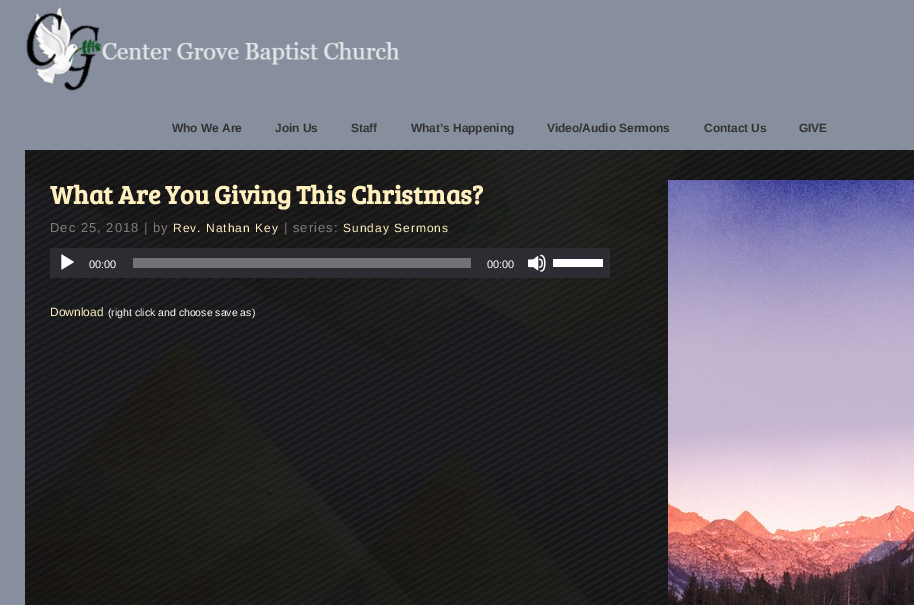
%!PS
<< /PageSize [914 605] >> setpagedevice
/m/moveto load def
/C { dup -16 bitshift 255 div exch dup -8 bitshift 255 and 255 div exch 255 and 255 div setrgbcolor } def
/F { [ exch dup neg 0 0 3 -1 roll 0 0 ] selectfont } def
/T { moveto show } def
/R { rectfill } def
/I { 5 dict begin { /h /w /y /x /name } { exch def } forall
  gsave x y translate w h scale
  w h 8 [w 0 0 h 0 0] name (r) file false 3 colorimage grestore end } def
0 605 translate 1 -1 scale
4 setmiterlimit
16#878E9E C
0 0 914 605 R
(1.rgb) 26 7 374 84 I
/LiberationSans-Bold 12 F
16#333333 C
172 132 m -.1 0 (Who We Are) ashow
275 132 m -.1 0 (Join Us) ashow
351 132 m -.1 0 (Staff) ashow
411 132 m -.1 0 (What’s Happening) ashow
547 132 m -.1 0 (Video/Audio Sermons) ashow
704 132 m -.1 0 (Contact Us) ashow
799 132 m -.1 0 (GIVE) ashow
(2.rgb) 25 150 889 455 I
/BreeSerif-Bold 26 F
16#FFF0C0 C
(What Are You Giving This Christmas?) 50 204 T
/LiberationSans-Regular 13 F
16#817F7B C
50 232 m 1 0 (Dec 25, 2018 | by) ashow
/LiberationSans-Regular 12 F
16#FFF0C0 C
173 232 m 1 0 (Rev. Nathan Key) ashow
/LiberationSans-Regular 13 F
16#817F7B C
284 232 m 1 0 (| series:) ashow
/LiberationSans-Regular 12 F
16#FFF0C0 C
343 232 m 1 0 (Sunday Sermons) ashow
16#2C2D33 C
50 248 560 30 R
(3.rgb) 61 254 13 16 I
/LiberationSans-Regular 11 F
16#FFFFFF C
(00:00) 89 268 T
16#727276 C
133 258 338 10 R
16#FFFFFF C
(00:00) 487 268 T
(4.rgb) 528 254 18 18 I
553 259 50 8 R
/LiberationSans-Regular 12 F
16#FFF0C0 C
(Download) 50 316 T
/LiberationSans-Regular 10.5 F
16#FFFFFF C
(\(right click and choose save as\)) 108 316 T
(5.rgb) 668 180 246 425 I
showpage
